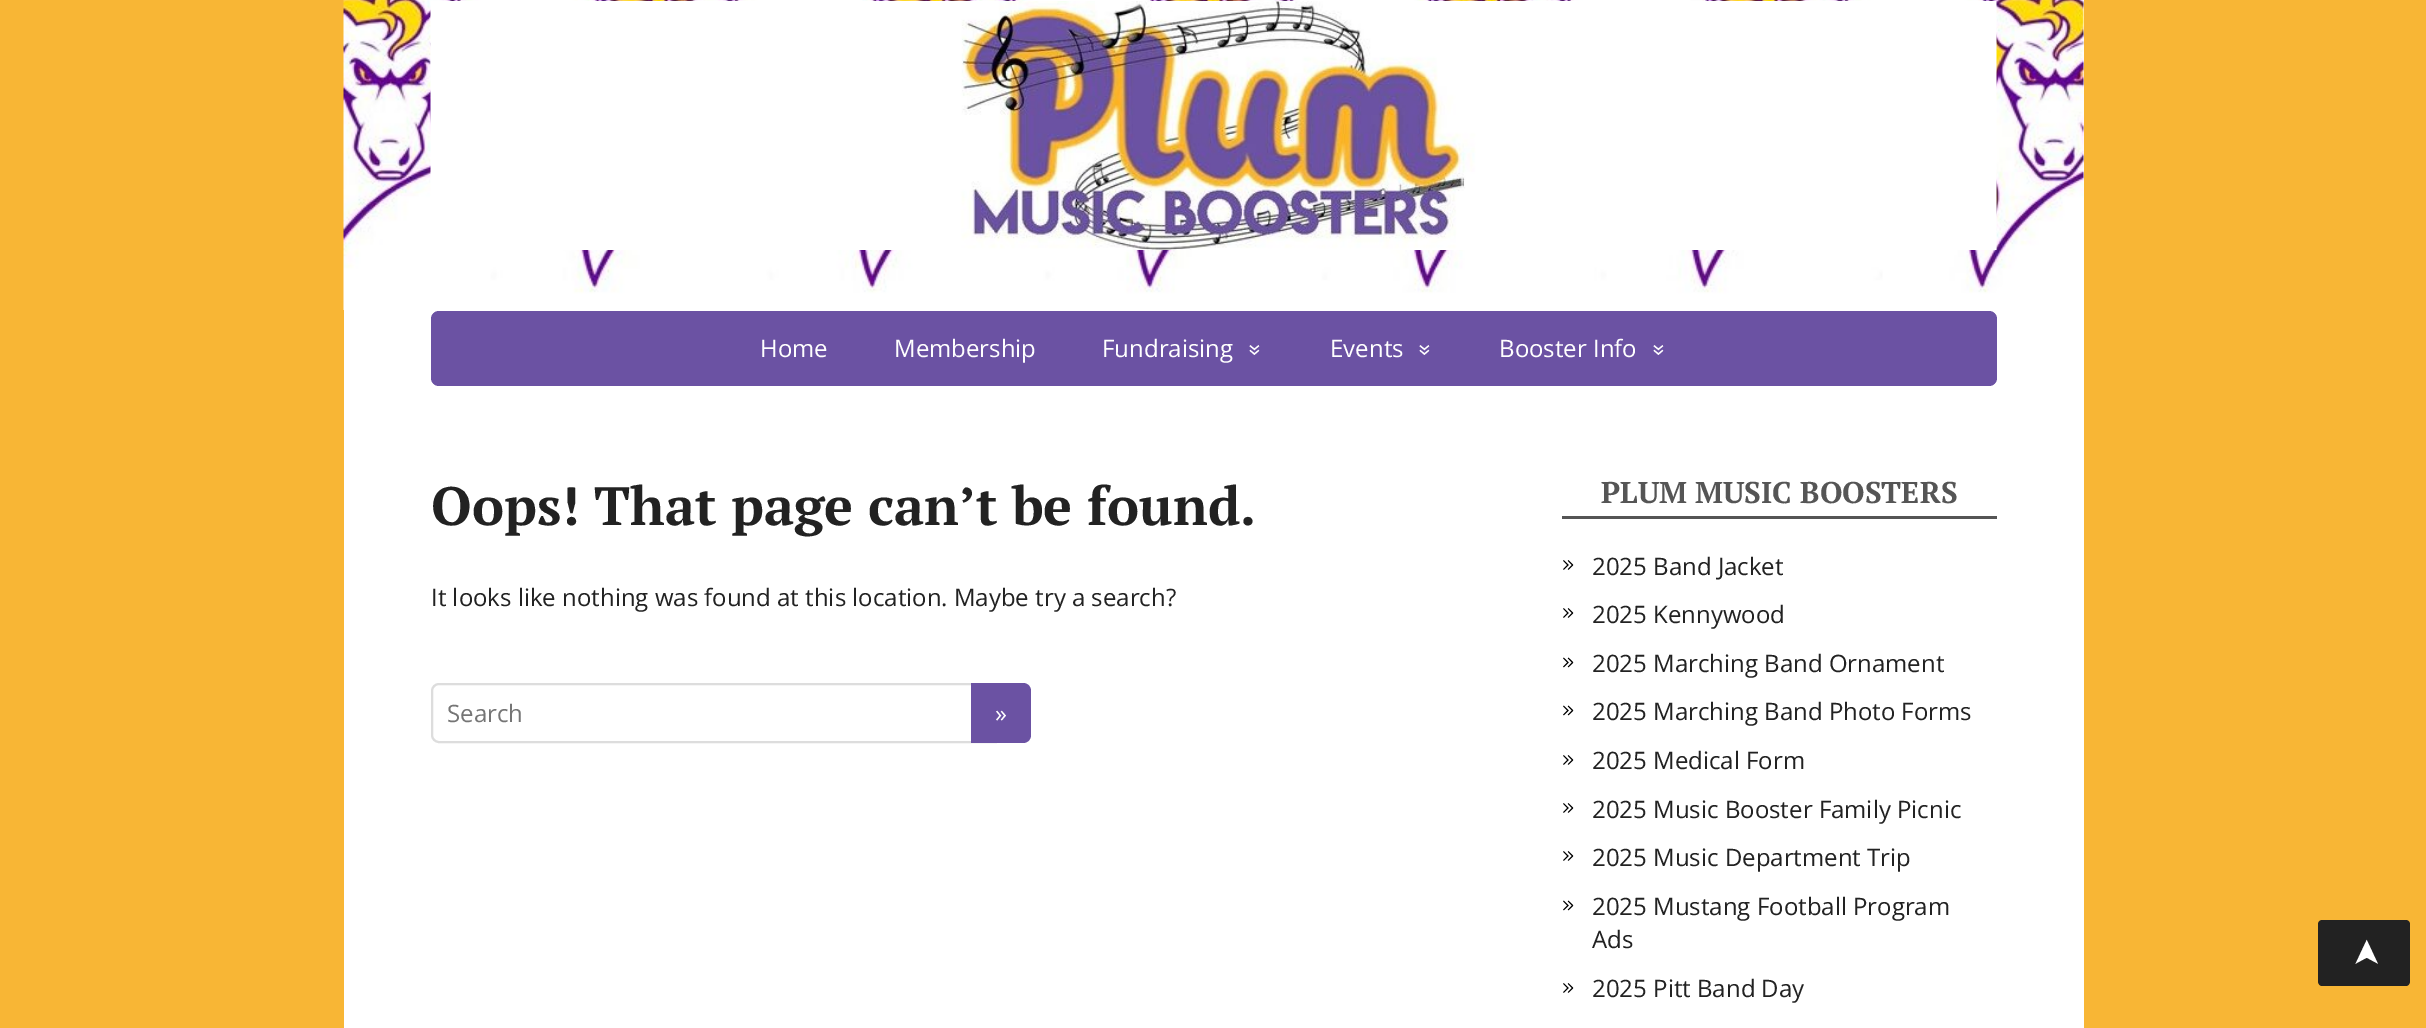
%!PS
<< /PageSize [2426 1028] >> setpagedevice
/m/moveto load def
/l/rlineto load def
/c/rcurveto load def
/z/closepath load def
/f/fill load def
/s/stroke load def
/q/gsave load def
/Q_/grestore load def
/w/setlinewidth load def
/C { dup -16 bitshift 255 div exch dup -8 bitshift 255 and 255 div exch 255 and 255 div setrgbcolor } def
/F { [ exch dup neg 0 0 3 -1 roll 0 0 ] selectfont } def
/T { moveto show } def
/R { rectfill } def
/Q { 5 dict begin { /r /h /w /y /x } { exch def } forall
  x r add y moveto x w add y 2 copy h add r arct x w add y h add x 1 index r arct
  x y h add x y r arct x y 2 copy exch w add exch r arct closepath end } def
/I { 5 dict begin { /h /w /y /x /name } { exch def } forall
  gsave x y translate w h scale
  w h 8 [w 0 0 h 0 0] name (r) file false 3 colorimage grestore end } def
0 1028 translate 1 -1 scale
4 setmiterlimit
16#F8B635 C
0 0 2426 1028 R
16#FFFFFF C
344 0 1740 1028 R
(1.rgb) 343 0 1741 310 I
(2.rgb) 430 1 1567 249 I
16#6B52A3 C
431 311 1566 75 8 Q f
/OpenSans-Regular 24 F
16#FFFFFF C
(Home) 760 357 T
(Membership) 894 357 T
(Fundraising) 1102 357 T
q 1248 344 translate 90 rotate 0 0 m (») show Q_
(Events) 1330 357 T
q 1418 344 translate 90 rotate 0 0 m (») show Q_
(Booster Info) 1499 357 T
q 1652 344 translate 90 rotate 0 0 m (») show Q_
/PTSerif-Bold 54 F
16#222222 C
(Oops! That page can’t be found.) 431 525 T
/OpenSans-Regular 24 F
(It looks like nothing was found at this location. Maybe try a search?) 431 606 T
16#DDDDDD C
2 w
432 684 571 58 7 Q s
16#757575 C
(Search) 447 722 T
16#6B52A3 C
971 683 m 52 0 l 4.5 0 8 3.5 8 8 c 0 44 l 0 4.5 -3.5 8 -8 8 c -52 0 l z f
16#FFFFFF C
(») 995 722 T
16#555555 C
1562 516 435 3 R
/PTSerif-Bold 30 F
(PLUM MUSIC BOOSTERS) 1601 503 T
(3.rgb) 1563 560 11 10 I
/OpenSans-Regular 24 F
16#222222 C
(2025 Band Jacket) 1592 575 T
(3.rgb) 1563 608 11 10 I
(2025 Kennywood) 1592 623 T
(4.rgb) 1563 657 11 11 I
(2025 Marching Band Ornament) 1592 672 T
(5.rgb) 1563 705 11 11 I
(2025 Marching Band Photo Forms) 1592 720 T
(3.rgb) 1563 755 11 10 I
(2025 Medical Form) 1592 769 T
(3.rgb) 1563 803 11 10 I
(2025 Music Booster Family Picnic) 1592 818 T
(3.rgb) 1563 851 11 10 I
(2025 Music Department Trip) 1592 866 T
(5.rgb) 1563 900 11 11 I
(2025 Mustang Football Program) 1592 915 T
(Ads) 1592 948 T
(3.rgb) 1563 983 11 10 I
(2025 Pitt Band Day) 1592 997 T
2318 981 m 0 -57 l 0 -2 2 -4 4 -4 c 84 0 l 2 0 4 2 4 4 c 0 57 l 0 3 -2 5 -4 5 c -84 0 l -2 0 -4 -2 -4 -5 c z f
/DejaVuSans-Regular 36 F
16#FFFFFF C
q 2378 968 translate -90 rotate 0 0 m (➤) show Q_
showpage
